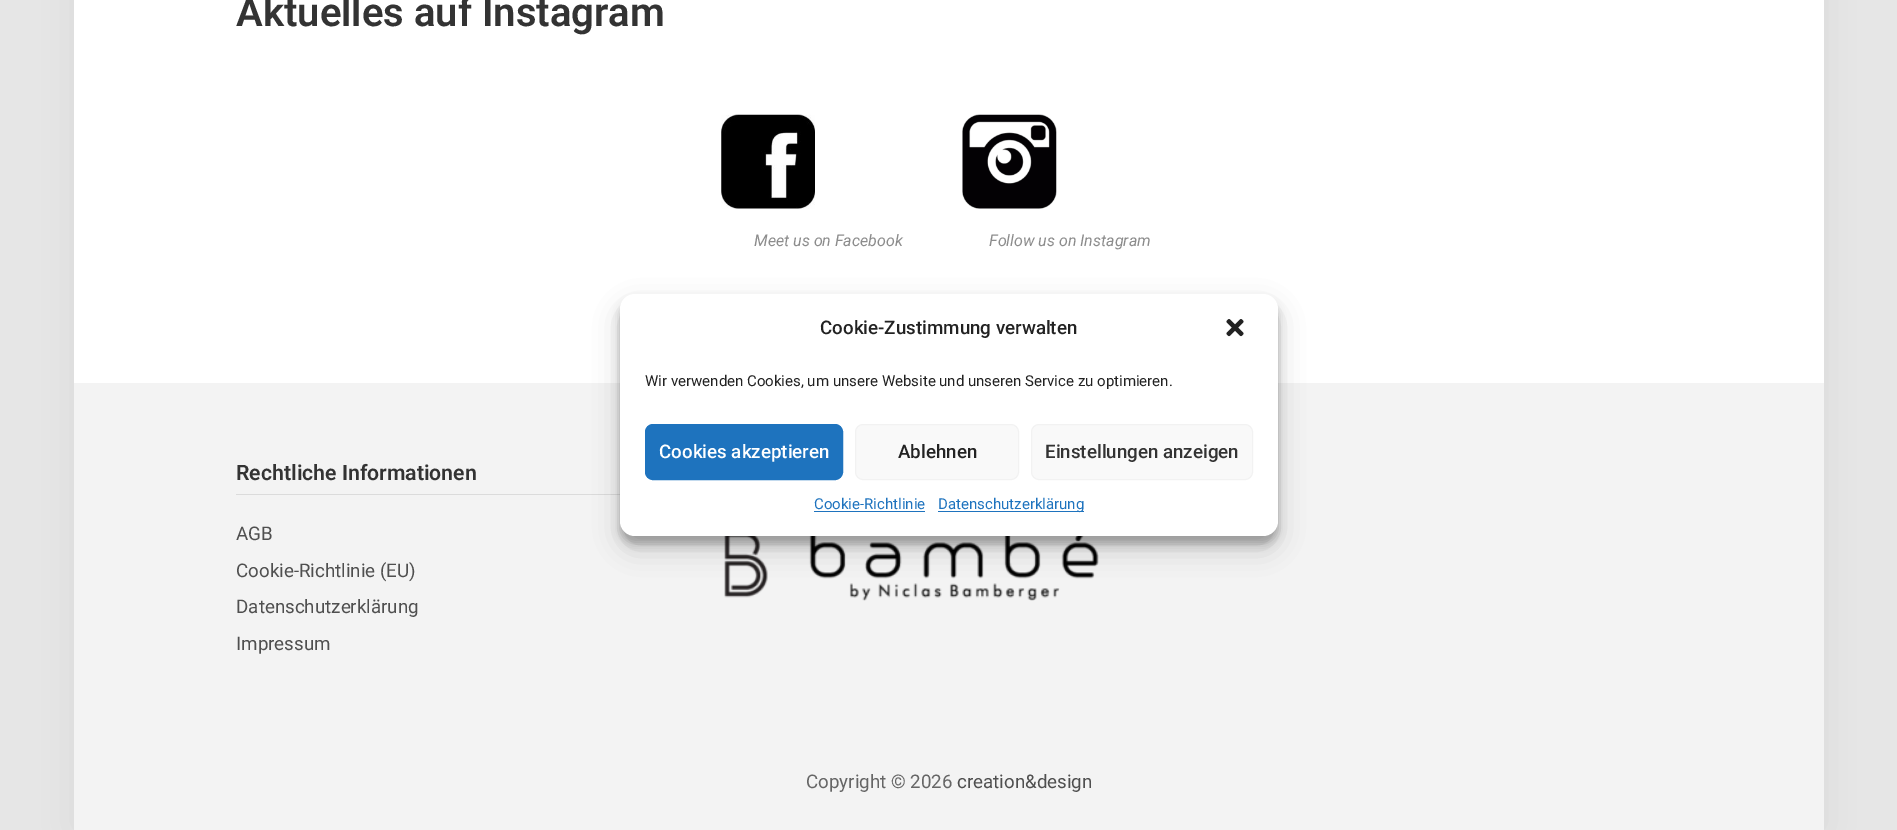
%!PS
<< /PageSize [1897 830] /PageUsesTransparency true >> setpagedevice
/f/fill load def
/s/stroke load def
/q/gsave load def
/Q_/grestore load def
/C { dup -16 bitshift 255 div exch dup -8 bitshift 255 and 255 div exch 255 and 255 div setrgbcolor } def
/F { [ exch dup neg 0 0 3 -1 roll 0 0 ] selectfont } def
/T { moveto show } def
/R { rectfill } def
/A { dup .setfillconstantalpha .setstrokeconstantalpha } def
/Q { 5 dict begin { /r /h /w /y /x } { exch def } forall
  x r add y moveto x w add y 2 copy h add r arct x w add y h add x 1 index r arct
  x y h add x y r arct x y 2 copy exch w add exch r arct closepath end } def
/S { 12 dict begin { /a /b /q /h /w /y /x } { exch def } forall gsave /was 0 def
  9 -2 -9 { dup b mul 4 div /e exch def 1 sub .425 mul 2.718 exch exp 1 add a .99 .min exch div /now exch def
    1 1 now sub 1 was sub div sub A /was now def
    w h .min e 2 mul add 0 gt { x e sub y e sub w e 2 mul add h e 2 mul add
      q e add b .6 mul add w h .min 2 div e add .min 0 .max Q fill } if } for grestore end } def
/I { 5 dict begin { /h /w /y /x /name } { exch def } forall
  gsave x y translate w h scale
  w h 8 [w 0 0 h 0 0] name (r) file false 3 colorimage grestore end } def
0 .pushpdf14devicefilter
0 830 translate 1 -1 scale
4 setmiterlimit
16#E6E6E6 C
0 0 1897 830 R
16#000000 C
74 -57 1750 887 0 19 .05 S
16#FFFFFF C
74 0 1750 383 R
/Roboto-SemiBold 40 F
16#333333 C
(Aktuelles auf Instagram) 236 26 T
(1.rgb) 721 114 94 95 I
/Roboto-Italic 16 F
16#8C8C8C C
(Meet us on Facebook) 754 246 T
(2.rgb) 962 114 95 95 I
(Follow us on Instagram) 989 246 T
16#F3F3F3 C
74 383 1750 447 R
16#DBDBDB C
236 494 384 1 R
/Roboto-SemiBold 21.25 F
16#333333 C
(Rechtliche Informationen) 236 480 T
/Roboto-Regular 18.75 F
16#4F4F4F C
(AGB) 236 540 T
(Cookie-Richtlinie \(EU\)) 236 577 T
(Datenschutzerklärung) 236 613 T
(Impressum) 236 650 T
(3.rgb) 724 536 375 65 I
16#666666 C
(Copyright © 2026) 806 788 T
16#4F4F4F C
(creation&design) 957 788 T
16#000000 C
620 301 658 243 15 4 .23 S
620 306 658 243 15 12.5 .19 S
16#FFFFFF C
620 294 658 242 15 Q f
/Roboto-Medium 18.75 F
16#222222 C
(Cookie-Zustimmung verwalten) 820 334 T
(4.rgb) 1226 319 18 18 I
/Roboto-Regular 15 F
(Wir verwenden Cookies, um unsere Website und unseren Service zu optimieren.) 645 386 T
16#1E73BE C
645.5 424.5 197 55 7.5 Q q f Q_
s
/Roboto-Medium 18.75 F
16#FFFFFF C
(Cookies akzeptieren) 659 458 T
16#F9F9F9 C
855.5 424.5 163 55 7.5 Q q f Q_
16#F2F2F2 C
s
16#222222 C
(Ablehnen) 898 458 T
16#F9F9F9 C
1031.5 424.5 221 55 7.5 Q q f Q_
16#F2F2F2 C
s
16#333333 C
(Einstellungen anzeigen) 1045 458 T
/Roboto-Regular 15 F
16#1E73BE C
(Cookie-Richtlinie) 814 509 T
814 511 111 1 R
938 511 146 1 R
(Datenschutzerklärung) 938 509 T
.poppdf14devicefilter showpage
